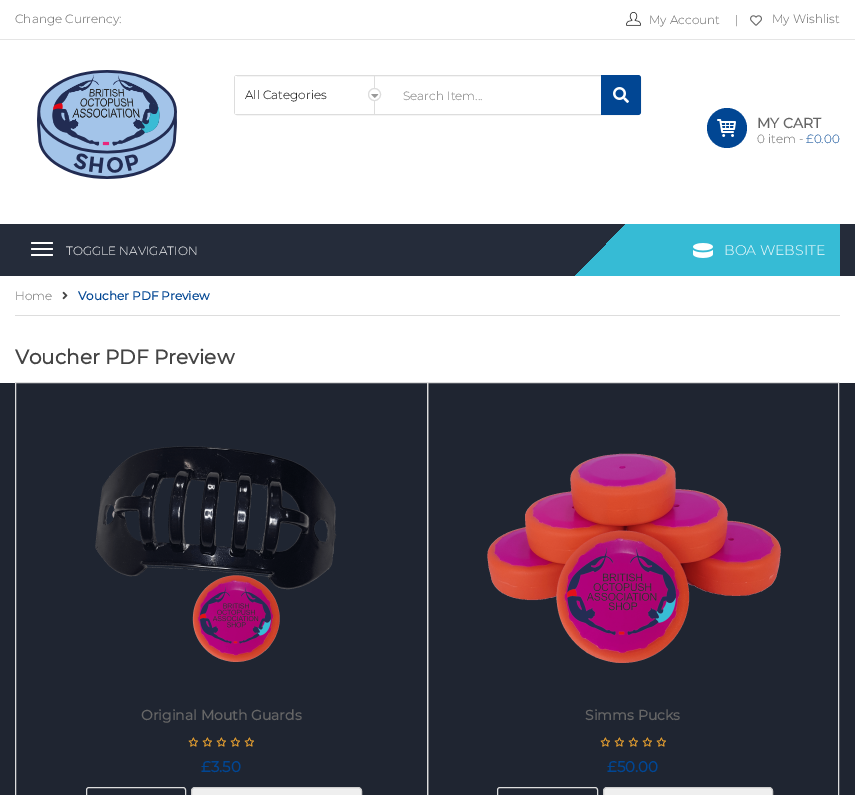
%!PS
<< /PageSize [855 795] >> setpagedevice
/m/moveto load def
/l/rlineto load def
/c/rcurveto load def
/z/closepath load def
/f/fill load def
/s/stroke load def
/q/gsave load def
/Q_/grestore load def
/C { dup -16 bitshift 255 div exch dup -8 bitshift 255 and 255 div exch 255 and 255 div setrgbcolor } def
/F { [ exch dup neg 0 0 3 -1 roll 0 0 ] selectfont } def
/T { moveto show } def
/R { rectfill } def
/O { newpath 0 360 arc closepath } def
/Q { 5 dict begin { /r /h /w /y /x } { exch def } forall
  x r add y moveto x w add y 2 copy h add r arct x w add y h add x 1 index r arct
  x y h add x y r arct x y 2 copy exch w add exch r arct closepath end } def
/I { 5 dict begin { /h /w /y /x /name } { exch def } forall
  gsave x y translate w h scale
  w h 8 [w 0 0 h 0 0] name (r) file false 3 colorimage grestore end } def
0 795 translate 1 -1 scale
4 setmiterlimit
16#FFFFFF C
0 0 855 795 R
16#E5E5E5 C
0 39 855 1 R
/Montserrat-Light 12 F
16#666666 C
(Change Currency:) 15 23 T
(1.rgb) 626 12 15 14 I
(My Account) 649 24 T
(|) 735 24 T
(2.rgb) 750 15 12 11 I
(My Wishlist) 772 23 T
(3.rgb) 37 70 140 109 I
16#DDDDDD C
234.5 75.5 406 39 2.5 Q s
374 76 1 39 R
16#FFFFFF C
235 76 2 38 R
16#000000 C
(All Categories) 245 99 T
16#FFFFFF C
374.5 94.5 6 O q f Q_
16#DDDDDD C
s
(4.rgb) 371 94 8 4 I
16#757575 C
(Search Item...) 403 100 T
16#014693 C
601 75 m 37 0 l 1.5 0 3 1.5 3 3 c 0 34 l 0 1.5 -1.5 3 -3 3 c -37 0 l z f
(5.rgb) 613 87 16 16 I
727 128 20 O f
(6.rgb) 717 119 19 18 I
/Montserrat-Bold 14 F
16#666666 C
(MY CART) 757 128 T
/Montserrat-Light 12 F
(0 item -) 757 143 T
16#014693 C
(£0.00) 806 143 T
16#252C3A C
0 224 855 52 R
16#FFFFFF C
31 242 22 2 1 Q f
31 248 22 2 1 Q f
(TOGGLE NAVIGATION) 66 255 T
31 254 22 2 1 Q f
q 575 224 m 265 0 l 0 52 l -265 0 l z clip newpath
<< /ShadingType 2 /ColorSpace /DeviceRGB /Coords [613 166 782 334] /Extend [true true] /Function << /FunctionType 3 /Domain [0 1] /Functions [<< /FunctionType 2 /Domain [0 1] /C0 [.145 .173 .227] /C1 [.145 .173 .227] /N 1 >> << /FunctionType 2 /Domain [0 1] /C0 [.212 .733 .835] /C1 [.212 .733 .835] /N 1 >>] /Bounds [.21] /Encode [0 1 0 1] >> >> shfill Q_
(7.rgb) 693 243 20 15 I
/Montserrat-Light 14 F
(BOA WEBSITE) 724 255 T
16#DDDDDD C
15 315 825 1 R
/Montserrat-Light 12 F
16#666666 C
(Home) 15 300 T
(8.rgb) 62 291 6 9 I
/Montserrat-Bold 12 F
16#014693 C
(Voucher PDF Preview) 78 300 T
/Montserrat-Bold 20 F
16#444444 C
(Voucher PDF Preview) 15 364 T
16#1F2531 C
0 383 855 412 R
16#DDDDDD C
15.5 382.5 412 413 rectstroke
(9.rgb) 95 446 242 216 I
/Montserrat-Bold 14 F
16#666666 C
(Original Mouth Guards) 141 720 T
(10.rgb) 188 737 66 10 I
/Montserrat-Bold 15 F
16#014693 C
(£3.50) 201 772 T
16#DDDDDD C
86.5 787.5 99 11 2.5 Q s
16#EFEFEF C
191.5 787.5 170 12 3.5 Q q f Q_
16#CECECE C
s
16#DDDDDD C
427.5 382.5 411 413 rectstroke
(11.rgb) 487 453 294 210 I
/Montserrat-Bold 14 F
16#666666 C
(Simms Pucks) 585 720 T
(10.rgb) 600 737 66 10 I
/Montserrat-Bold 15 F
16#014693 C
(£50.00) 607 772 T
16#DDDDDD C
497.5 787.5 100 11 2.5 Q s
16#EFEFEF C
603.5 787.5 169 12 3.5 Q q f Q_
16#CECECE C
s
showpage
